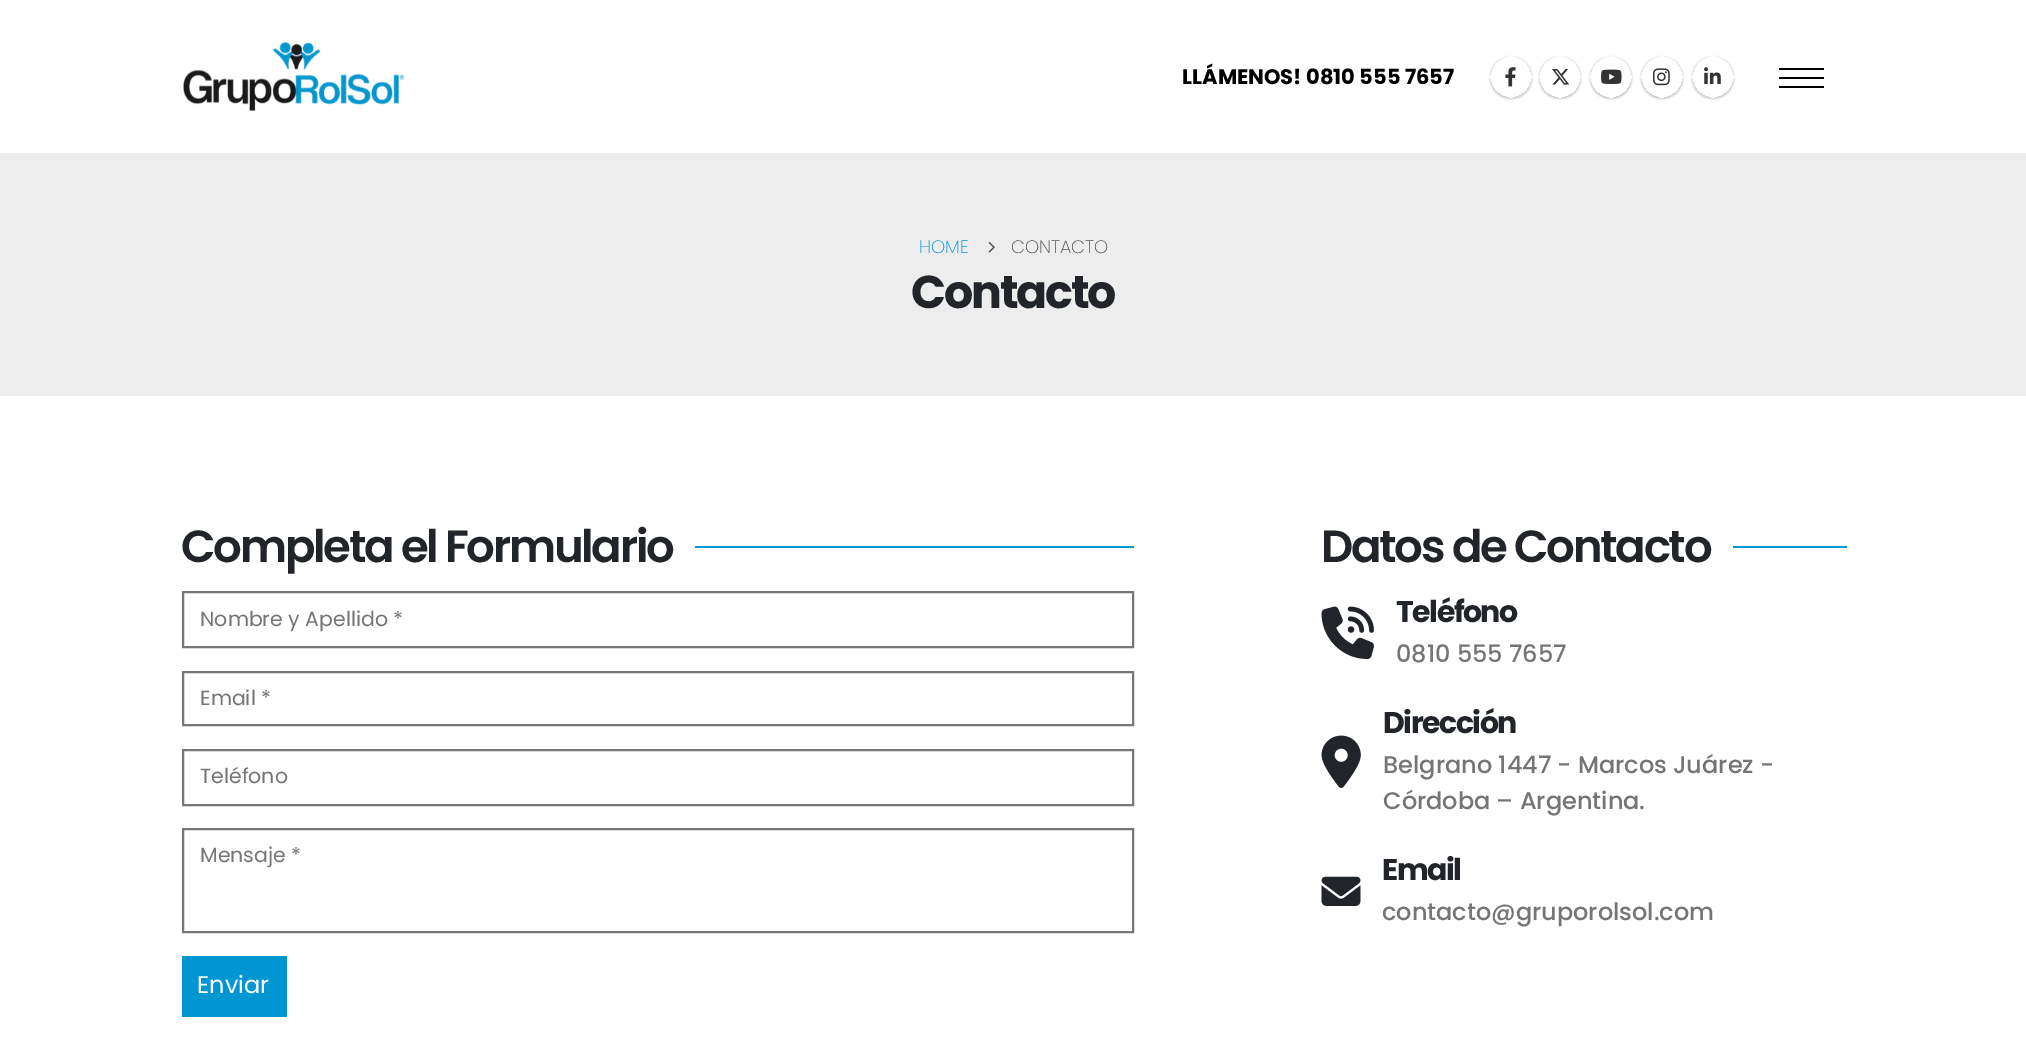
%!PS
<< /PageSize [2026 1045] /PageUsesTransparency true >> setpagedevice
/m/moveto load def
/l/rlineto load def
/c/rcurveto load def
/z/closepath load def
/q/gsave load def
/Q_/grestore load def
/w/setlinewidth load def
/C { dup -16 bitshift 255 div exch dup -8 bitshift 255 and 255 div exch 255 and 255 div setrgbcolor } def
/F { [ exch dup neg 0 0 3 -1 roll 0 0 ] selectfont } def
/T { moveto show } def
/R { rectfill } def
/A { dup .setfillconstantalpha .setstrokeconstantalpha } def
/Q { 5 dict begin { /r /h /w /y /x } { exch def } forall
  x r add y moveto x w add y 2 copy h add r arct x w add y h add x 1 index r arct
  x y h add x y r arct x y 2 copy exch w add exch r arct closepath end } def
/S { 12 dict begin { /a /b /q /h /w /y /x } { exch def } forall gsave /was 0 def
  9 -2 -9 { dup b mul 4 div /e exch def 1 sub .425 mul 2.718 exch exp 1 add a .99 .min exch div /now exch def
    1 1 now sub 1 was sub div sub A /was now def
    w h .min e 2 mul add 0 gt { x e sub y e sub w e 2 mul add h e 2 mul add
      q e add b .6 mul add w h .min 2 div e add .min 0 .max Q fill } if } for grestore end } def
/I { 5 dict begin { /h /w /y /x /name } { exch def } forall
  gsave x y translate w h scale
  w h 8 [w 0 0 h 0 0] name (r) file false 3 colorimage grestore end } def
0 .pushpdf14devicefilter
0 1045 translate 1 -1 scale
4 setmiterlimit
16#FFFFFF C
0 0 2026 1045 R
(1.rgb) 183 42 222 69 I
/Poppins-Bold 21 F
16#000000 C
(LLÁMENOS! 0810 555 7657) 1182 84 T
q
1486 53 m 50 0 l 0 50 l -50 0 l z 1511 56 m 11.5 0 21 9.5 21 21 c 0 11.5 -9.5 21 -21 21 c -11.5 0 -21 -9.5 -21 -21 c 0 -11.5 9.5 -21 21 -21 c z eoclip newpath
1490 57 42 42 21 1 .2 S
Q_
(2.rgb) 1505 67 11 20 I
q
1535 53 m 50 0 l 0 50 l -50 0 l z 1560 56 m 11.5 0 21 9.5 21 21 c 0 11.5 -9.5 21 -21 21 c -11.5 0 -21 -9.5 -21 -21 c 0 -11.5 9.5 -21 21 -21 c z eoclip newpath
1539 57 42 42 21 1 .2 S
Q_
(3.rgb) 1552 69 18 16 I
q
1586 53 m 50 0 l 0 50 l -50 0 l z 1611 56 m 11.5 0 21 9.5 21 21 c 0 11.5 -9.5 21 -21 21 c -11.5 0 -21 -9.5 -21 -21 c 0 -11.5 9.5 -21 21 -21 c z eoclip newpath
1590 57 42 42 21 1 .2 S
Q_
(4.rgb) 1601 69 21 15 I
q
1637 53 m 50 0 l 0 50 l -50 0 l z 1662 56 m 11.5 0 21 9.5 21 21 c 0 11.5 -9.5 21 -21 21 c -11.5 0 -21 -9.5 -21 -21 c 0 -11.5 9.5 -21 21 -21 c z eoclip newpath
1641 57 42 42 21 1 .2 S
Q_
(5.rgb) 1653 68 17 18 I
q
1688 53 m 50 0 l 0 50 l -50 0 l z 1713 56 m 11.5 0 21 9.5 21 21 c 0 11.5 -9.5 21 -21 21 c -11.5 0 -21 -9.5 -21 -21 c 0 -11.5 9.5 -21 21 -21 c z eoclip newpath
1692 57 42 42 21 1 .2 S
Q_
(6.rgb) 1704 67 17 17 I
1779 68 45 2 R
1779 77 45 2 R
1779 86 45 2 R
16#EDEDED C
0 153 2026 243 R
/Poppins-ExtraLight 18 F
16#0096D2 C
(HOME) 919 253 T
(7.rgb) 988 241 7 12 I
16#4D5154 C
(CONTACTO) 1011 253 T
/Poppins-Bold 46 F
16#212529 C
911 308 m -2.25 0 (Contacto) ashow
/Poppins-SemiBold 45 F
181 562 m -2.25 0 (Completa el Formulario) ashow
16#0096D2 C
695 546 439 2 R
16#777777 C
2 w
183 592 950 55 rectstroke
/Poppins-Regular 20.5 F
16#757575 C
(Nombre y Apellido *) 200 626 T
16#777777 C
183 672 950 53 rectstroke
16#757575 C
(Email *) 200 705 T
16#777777 C
183 750 950 55 rectstroke
16#757575 C
(Teléfono) 200 783 T
16#777777 C
183 829 950 103 rectstroke
16#757575 C
(Mensaje *) 200 862 T
16#0096D2 C
182 956 105 61 R
/Poppins-Regular 24 F
16#FFFFFF C
(Enviar) 197 993 T
/Poppins-SemiBold 45 F
16#212529 C
1321 562 m -2.25 0 (Datos de Contacto) ashow
16#0096D2 C
1733 546 114 2 R
(8.rgb) 1321 606 53 54 I
/Poppins-Bold 30 F
16#212529 C
1396 622 m -1.5 0 (Teléfono) ashow
/Poppins-Medium 24 F
16#757575 C
(0810 555 7657) 1396 662 T
(9.rgb) 1321 735 40 53 I
/Poppins-Bold 30 F
16#212529 C
1383 733 m -1.5 0 (Dirección) ashow
/Poppins-Medium 24 F
16#757575 C
(Belgrano 1447 - Marcos Juárez -) 1383 773 T
(Córdoba – Argentina.) 1383 809 T
(10.rgb) 1321 876 40 30 I
/Poppins-Bold 30 F
16#212529 C
1382 880 m -1.5 0 (Email) ashow
/Poppins-Medium 24 F
16#757575 C
(contacto@gruporolsol.com) 1382 920 T
.poppdf14devicefilter showpage
